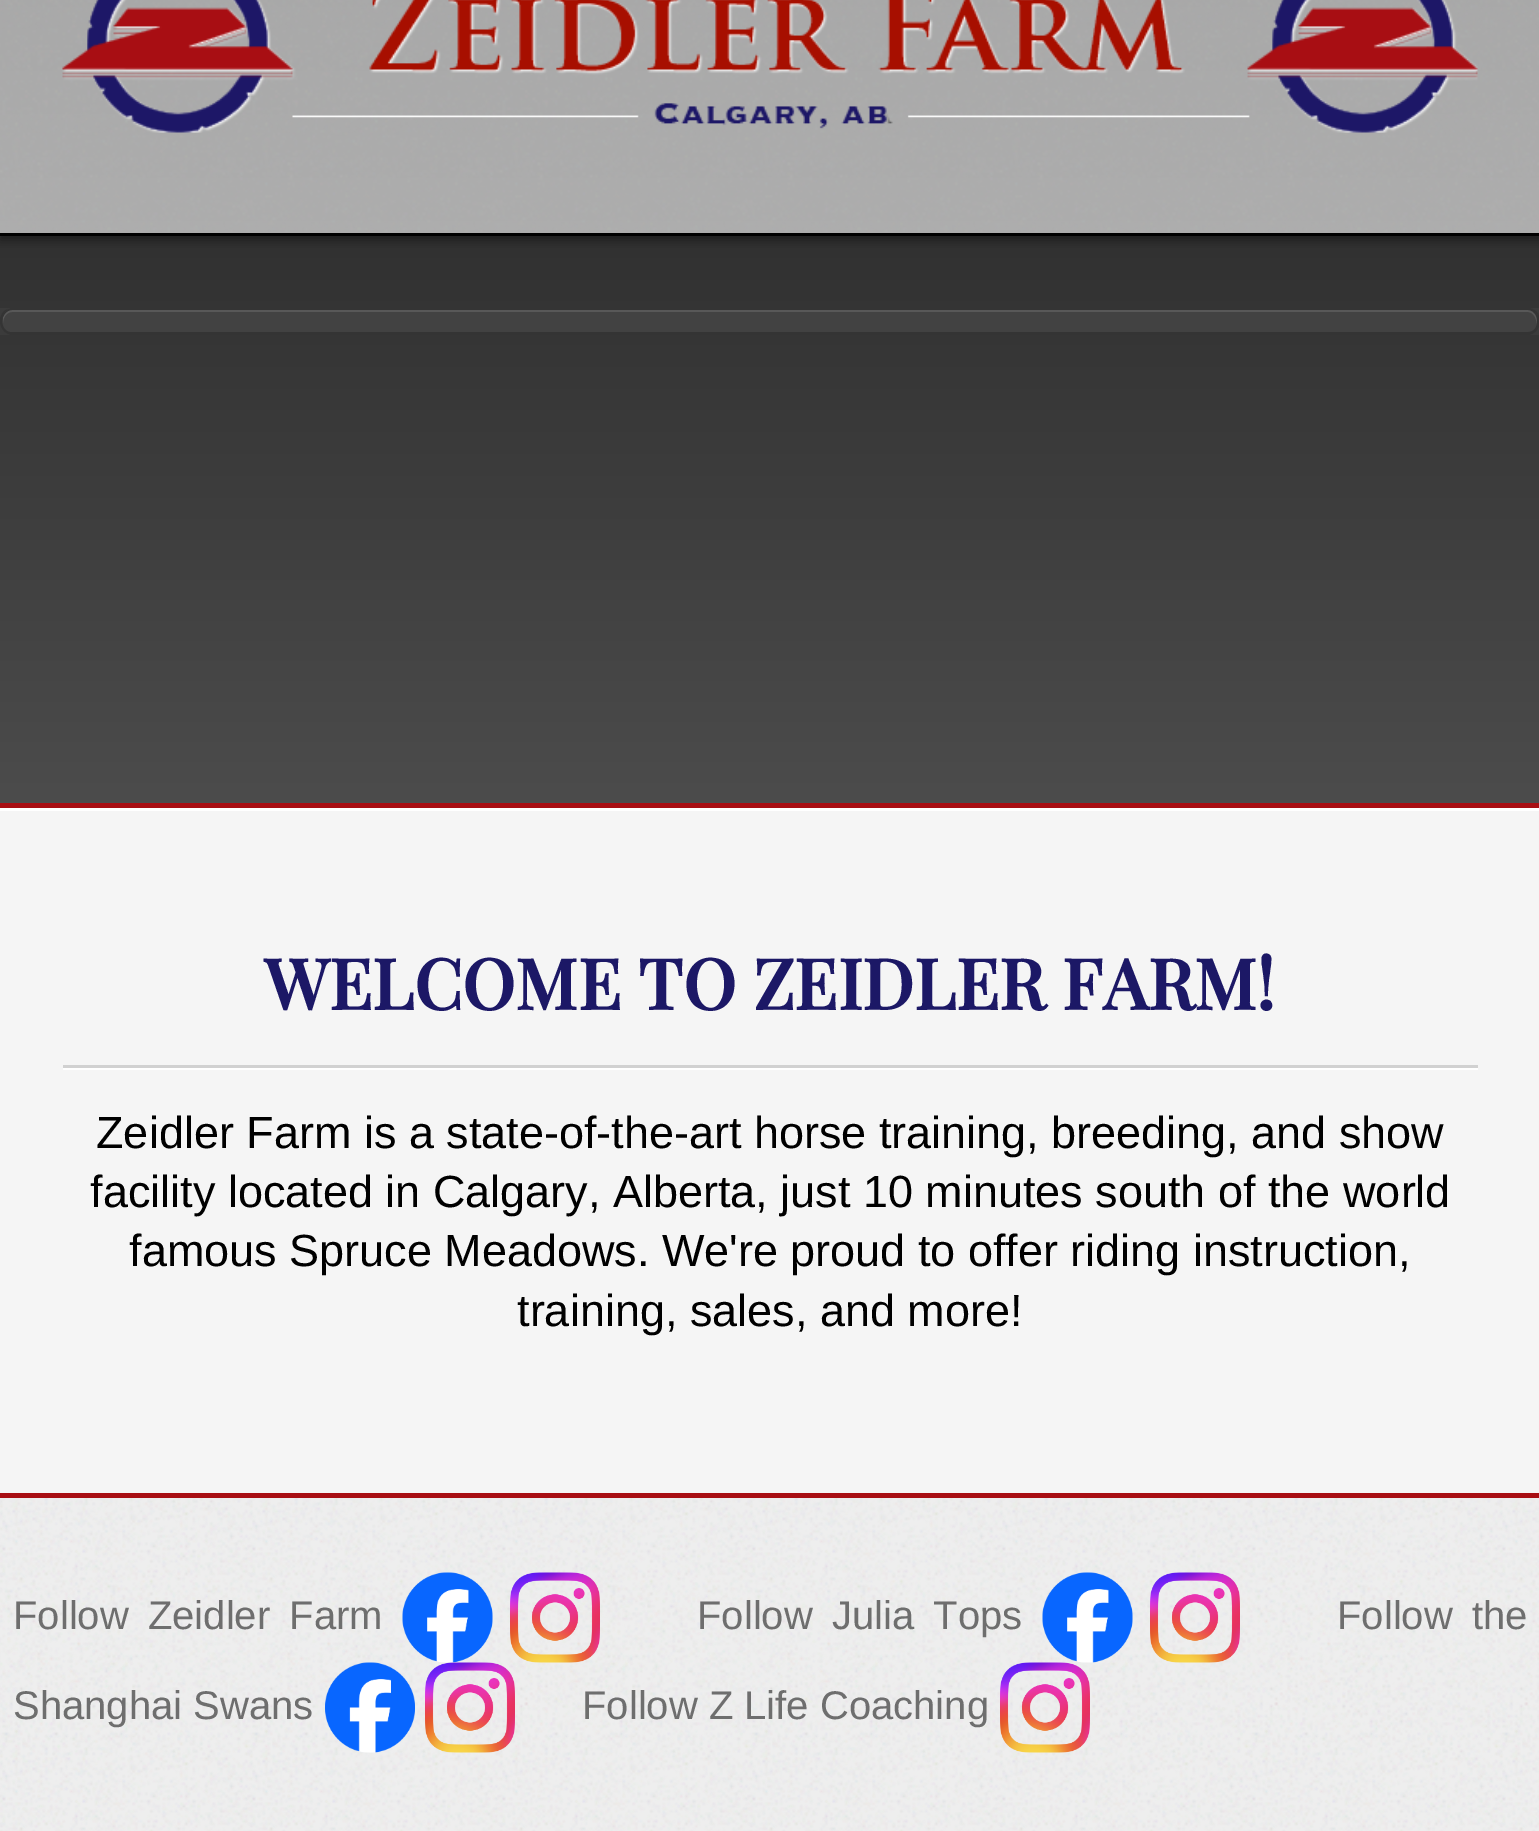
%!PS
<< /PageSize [1539 1831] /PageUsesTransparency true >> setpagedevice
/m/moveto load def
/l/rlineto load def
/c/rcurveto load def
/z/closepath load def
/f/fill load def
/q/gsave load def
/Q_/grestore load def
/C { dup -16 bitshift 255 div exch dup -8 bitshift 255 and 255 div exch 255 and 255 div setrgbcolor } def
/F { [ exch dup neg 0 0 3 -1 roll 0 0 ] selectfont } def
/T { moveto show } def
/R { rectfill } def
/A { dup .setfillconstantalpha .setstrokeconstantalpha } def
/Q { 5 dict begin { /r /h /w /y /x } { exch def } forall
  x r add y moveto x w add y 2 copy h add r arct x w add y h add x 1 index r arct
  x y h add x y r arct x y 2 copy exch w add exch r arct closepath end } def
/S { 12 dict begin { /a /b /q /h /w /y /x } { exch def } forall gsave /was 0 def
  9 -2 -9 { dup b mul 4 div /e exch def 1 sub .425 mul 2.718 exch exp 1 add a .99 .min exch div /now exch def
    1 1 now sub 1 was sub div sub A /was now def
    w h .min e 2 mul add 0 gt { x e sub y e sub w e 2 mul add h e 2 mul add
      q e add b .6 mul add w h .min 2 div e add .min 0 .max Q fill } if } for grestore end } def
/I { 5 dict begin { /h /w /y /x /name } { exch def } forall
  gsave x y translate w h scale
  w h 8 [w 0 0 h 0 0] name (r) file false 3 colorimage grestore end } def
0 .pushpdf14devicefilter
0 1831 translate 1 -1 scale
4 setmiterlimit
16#F5F5F5 C
0 0 1539 1831 R
q 0 236 m 1539 0 l 0 567 l -1539 0 l z clip newpath
<< /ShadingType 2 /ColorSpace /DeviceRGB /Coords [770 -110 770 808] /Extend [true true] /Function << /FunctionType 2 /Domain [0 1] /C0 [.129 .129 .129] /C1 [.298 .298 .298] /N 1 >> >> shfill Q_
q 0 0 m 1539 0 l 0 233 l -1539 0 l z clip newpath
<< /ShadingType 2 /ColorSpace /DeviceRGB /Coords [770 -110 770 808] /Extend [true true] /Function << /FunctionType 2 /Domain [0 1] /C0 [.651 .651 .651] /C1 [.718 .718 .718] /N 1 >> >> shfill Q_
16#FFFFFF C
0 808 1539 3 R
16#A80E13 C
0 803 1539 5 R
q
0 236 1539 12 rectclip
16#000000 C
0 -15 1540 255 0 5 .4 S
Q_
16#000000 C
0 233 1539 3 R
(1.rgb) 0 0 1539 232 I
(2.rgb) 62 0 1416 133 I
16#3B3B3B C
0 308 1539 27 R
16#424242 C
0 308 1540 27 13 Q f
16#585858 C
12 312 m 1516 0 l 6 0 9 8 9 13 c 1 -5 0 -10 -2 -14 c -2 -2 -5 -3 -7 -3 c -1516 0 l -7 0 -10 8 -9 15 c 0 -6 4 -11 9 -11 c z f
16#343434 C
12 310 m 1516 0 l 5 0 9 5 9 10 c 0 5 l 2 -6 0 -15 -7 -17 c -1518 0 l -6 0 -10 7 -10 12 c 1 -5 5 -10 10 -10 c z f
12 308 m 1516 0 l 6 0 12 5 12 12 c 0 2 l 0 7 -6 13 -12 13 c -1516 0 l -6 0 -12 -6 -12 -13 c 0 -2 l 0 -7 6 -12 12 -12 c z 12 308 m 1516 0 l 5 0 9 5 9 9 c 1 7 -1 15 -9 15 c -1518 0 l -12 -2 -9 -24 2 -24 c z eofill
16#FFFFFF C
63 1068 m 0 2 l 1415 0 l 0 -132 l 0 130 l z f
16#D1D1D1 C
63 1065 1415 3 R
/PlayfairDisplay-Bold 70 F
16#1C1866 C
(WELCOME TO ZEIDLER FARM!) 264 1010 T
/LiberationSans-Regular 45 F
16#000000 C
(Zeidler Farm is a state-of-the-art horse training, breeding, and show) 96 1148 T
(facility located in Calgary, Alberta, just 10 minutes south of the world) 90 1207 T
(famous Spruce Meadows. We're proud to offer riding instruction,) 129 1266 T
(training, sales, and more!) 517 1326 T
16#EEEEEE C
0 1498 1539 333 R
(3.rgb) 0 1498 1539 333 I
16#A80E13 C
0 1493 1539 5 R
/LiberationSans-Regular 40 F
16#6E6E6E C
13 1629 m 8 0 32 (Follow Zeidler Farm) widthshow
(4.rgb) 402 1572 91 91 I
(5.rgb) 510 1572 90 91 I
697 1629 m 8 0 32 (Follow Julia Tops) widthshow
(6.rgb) 1042 1572 91 91 I
(7.rgb) 1150 1572 90 91 I
1337 1629 m 8 0 32 (Follow the) widthshow
(Shanghai Swans) 13 1719 T
(8.rgb) 325 1662 90 91 I
(9.rgb) 425 1662 90 91 I
(Follow Z Life Coaching) 582 1719 T
(10.rgb) 1000 1662 90 91 I
.poppdf14devicefilter showpage
